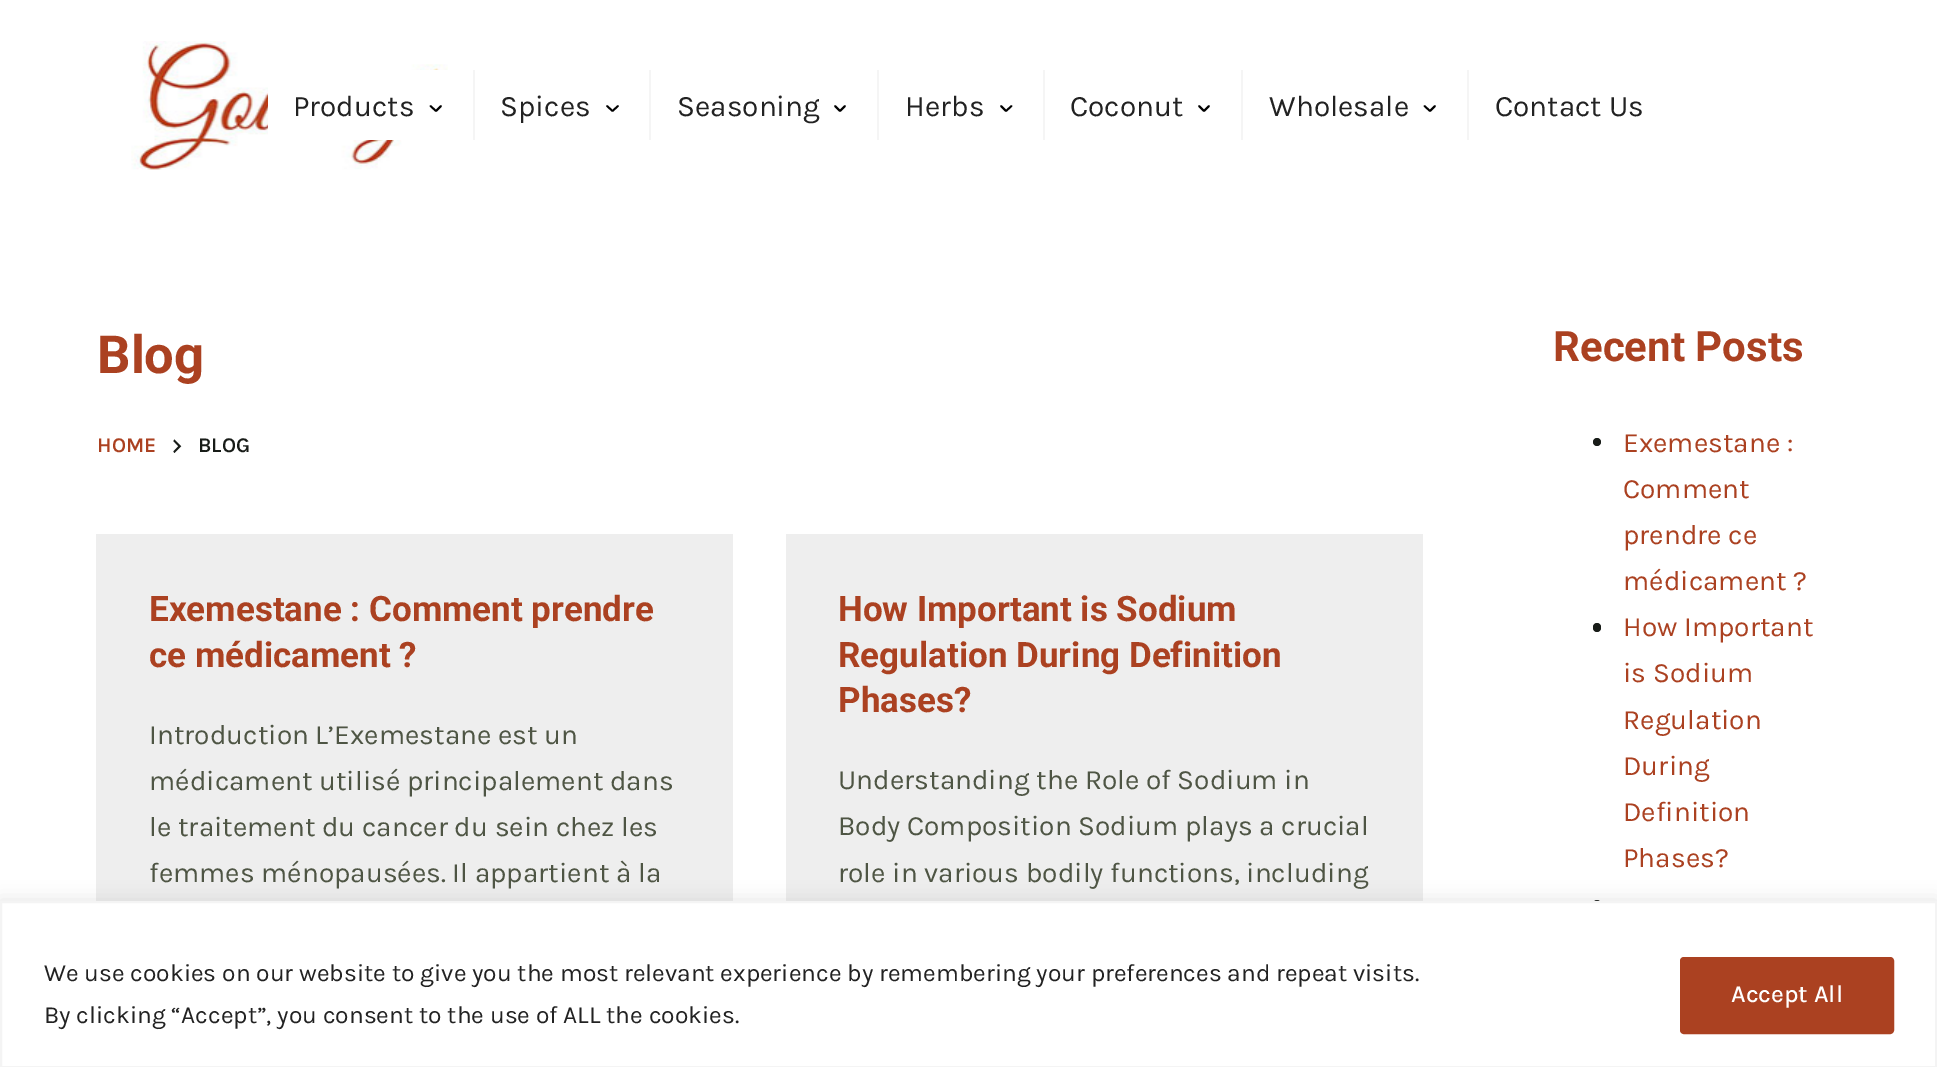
%!PS
<< /PageSize [1937 1067] /PageUsesTransparency true >> setpagedevice
/m/moveto load def
/l/rlineto load def
/z/closepath load def
/f/fill load def
/s/stroke load def
/q/gsave load def
/Q_/grestore load def
/w/setlinewidth load def
/C { dup -16 bitshift 255 div exch dup -8 bitshift 255 and 255 div exch 255 and 255 div setrgbcolor } def
/F { [ exch dup neg 0 0 3 -1 roll 0 0 ] selectfont } def
/T { moveto show } def
/R { rectfill } def
/A { dup .setfillconstantalpha .setstrokeconstantalpha } def
/O { newpath 0 360 arc closepath } def
/Q { 5 dict begin { /r /h /w /y /x } { exch def } forall
  x r add y moveto x w add y 2 copy h add r arct x w add y h add x 1 index r arct
  x y h add x y r arct x y 2 copy exch w add exch r arct closepath end } def
/S { 12 dict begin { /a /b /q /h /w /y /x } { exch def } forall gsave /was 0 def
  9 -2 -9 { dup b mul 4 div /e exch def 1 sub .425 mul 2.718 exch exp 1 add a .99 .min exch div /now exch def
    1 1 now sub 1 was sub div sub A /was now def
    w h .min e 2 mul add 0 gt { x e sub y e sub w e 2 mul add h e 2 mul add
      q e add b .6 mul add w h .min 2 div e add .min 0 .max Q fill } if } for grestore end } def
/I { 5 dict begin { /h /w /y /x /name } { exch def } forall
  gsave x y translate w h scale
  w h 8 [w 0 0 h 0 0] name (r) file false 3 colorimage grestore end } def
0 .pushpdf14devicefilter
0 1067 translate 1 -1 scale
4 setmiterlimit
16#FFFFFF C
0 0 1937 1067 R
(1.rgb) 131 41 317 129 I
268 70 180 70 R
/Karla-Regular 29.75 F
16#222222 C
(Products) 293 116 T
16#000000 C
1.8 w
1 setlinecap
1 setlinejoin
430.5 106 m 5.5 5 l 5 -5 l s
16#F5F5F5 C
473 70 2 70 R
16#222222 C
(Spices) 500 116 T
16#000000 C
607 106 m 5.5 5 l 5.5 -5 l s
16#F5F5F5 C
649 70 2 70 R
16#222222 C
(Seasoning) 677 116 T
16#000000 C
835 106 m 5 5 l 5 -5 l s
16#F5F5F5 C
877 70 2 70 R
16#222222 C
(Herbs) 905 116 T
16#000000 C
1001 106 m 5 5 l 5.5 -5 l s
16#F5F5F5 C
1043 70 2 70 R
16#222222 C
(Coconut) 1070 116 T
16#000000 C
1199 106 m 5 5 l 5 -5 l s
16#F5F5F5 C
1241 70 2 70 R
16#222222 C
(Wholesale) 1269 116 T
16#000000 C
1424.5 106 m 5.5 5 l 5 -5 l s
16#F5F5F5 C
1467 70 2 70 R
16#222222 C
(Contact Us) 1495 116 T
/Roboto-Bold 52.5 F
16#AB4121 C
(Blog) 97 373 T
/Karla-SemiBold 21 F
(HOME) 97 452 T
(2.rgb) 173 439 9 14 I
16#181C18 C
(BLOG) 198 452 T
16#EEEEEE C
96 534 637 367 R
/Roboto-Bold 35 F
16#AB4121 C
(Exemestane : Comment prendre) 149 621 T
(ce médicament ?) 149 667 T
/Karla-Regular 28 F
16#4E5544 C
(Introduction L’Exemestane est un) 149 744 T
(médicament utilisé principalement dans) 149 790 T
(le traitement du cancer du sein chez les) 149 836 T
(femmes ménopausées. Il appartient à la) 149 882 T
16#EEEEEE C
786 534 637 367 R
/Roboto-Bold 35 F
16#AB4121 C
(How Important is Sodium) 838 621 T
(Regulation During Definition) 838 667 T
(Phases?) 838 712 T
/Karla-Regular 28 F
16#4E5544 C
(Understanding the Role of Sodium in) 838 789 T
(Body Composition Sodium plays a crucial) 838 835 T
(role in various bodily functions, including) 838 882 T
/Roboto-Bold 42 F
16#AB4121 C
(Recent Posts) 1553 361 T
16#181C18 C
1597 442 4 O f
/Karla-Regular 28 F
16#AB4121 C
(Exemestane :) 1623 452 T
(Comment) 1623 498 T
(prendre ce) 1623 544 T
(médicament ?) 1623 590 T
16#181C18 C
1593 623 8 9 4 Q f
16#AB4121 C
(How Important) 1623 636 T
(is Sodium) 1623 682 T
(Regulation) 1623 729 T
(During) 1623 775 T
(Definition) 1623 821 T
(Phases?) 1623 867 T
16#181C18 C
1597 904 4 O f
16#ACABAB C
0 900 1937 166 0 9 .3 S
16#FFFFFF C
1 902 m 1935 0 l 0 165 l -1935 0 l z q f Q_
16#F4F4F4 C
2 w
0 setlinecap
0 setlinejoin
s
/Karla-Regular 24.5 F
16#222222 C
(We use cookies on our website to give you the most relevant experience by remembering your preferences and repeat visits.) 44 981 T
(By clicking “Accept”, you consent to the use of ALL the cookies.) 44 1023 T
16#AB4121 C
1682 959 210 73 2 Q q f Q_
4 w
s
/Karla-Medium 24.5 F
16#FFFFFF C
(Accept All) 1731 1002 T
.poppdf14devicefilter showpage
